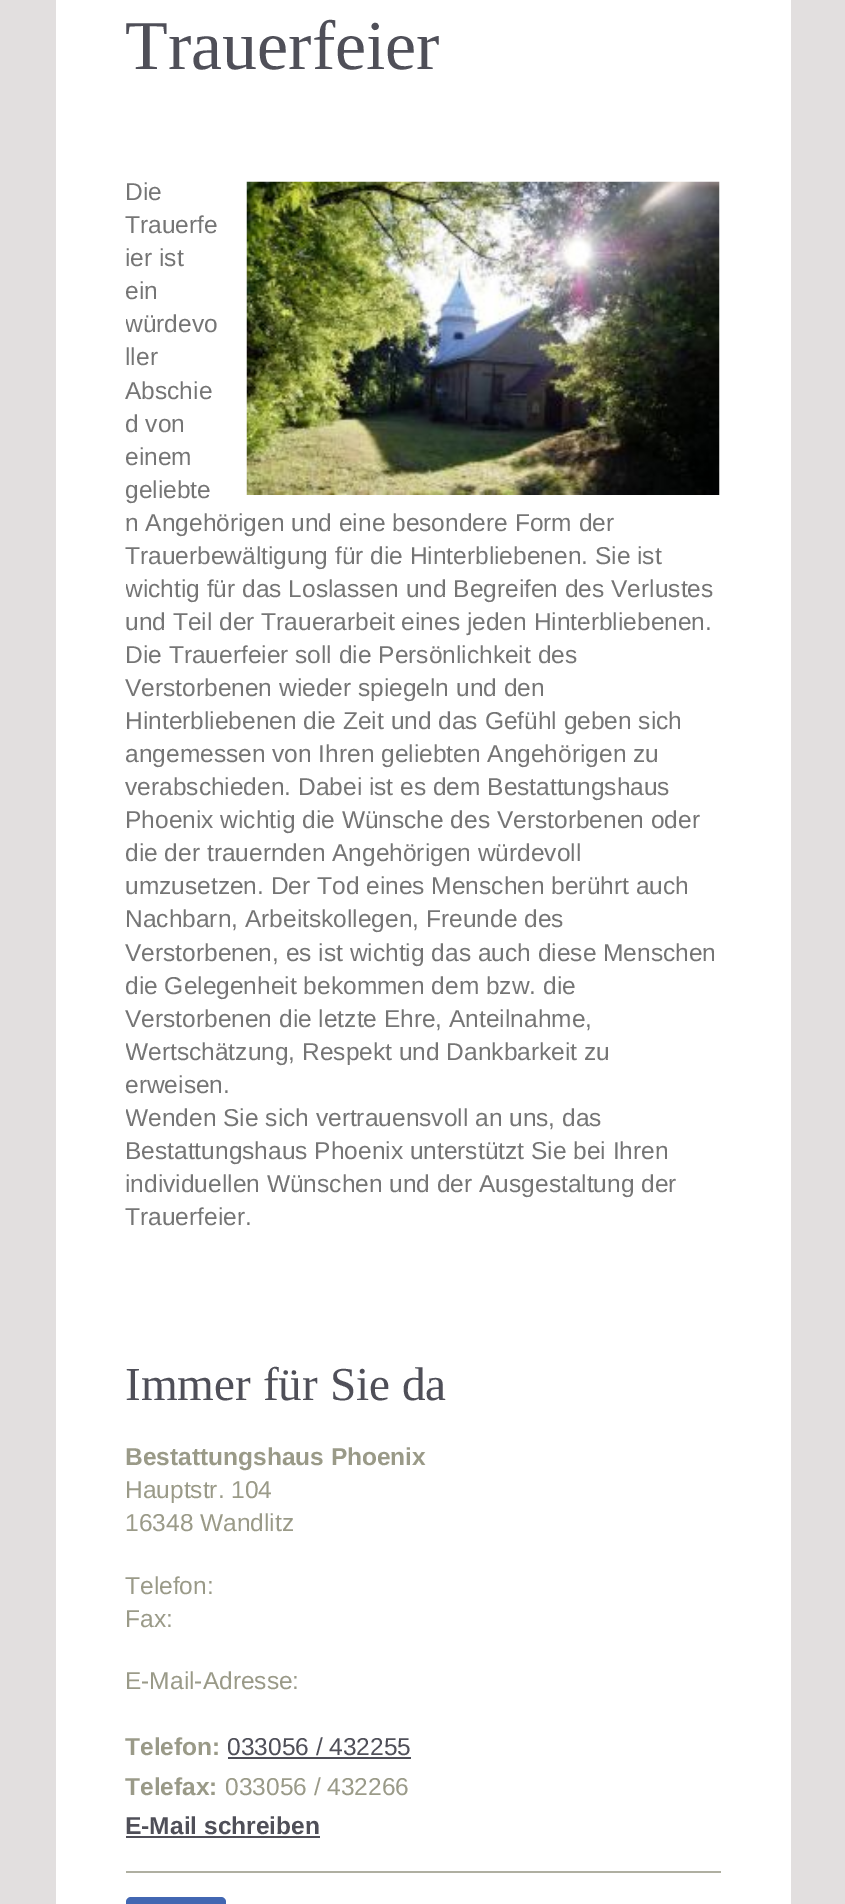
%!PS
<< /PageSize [845 1904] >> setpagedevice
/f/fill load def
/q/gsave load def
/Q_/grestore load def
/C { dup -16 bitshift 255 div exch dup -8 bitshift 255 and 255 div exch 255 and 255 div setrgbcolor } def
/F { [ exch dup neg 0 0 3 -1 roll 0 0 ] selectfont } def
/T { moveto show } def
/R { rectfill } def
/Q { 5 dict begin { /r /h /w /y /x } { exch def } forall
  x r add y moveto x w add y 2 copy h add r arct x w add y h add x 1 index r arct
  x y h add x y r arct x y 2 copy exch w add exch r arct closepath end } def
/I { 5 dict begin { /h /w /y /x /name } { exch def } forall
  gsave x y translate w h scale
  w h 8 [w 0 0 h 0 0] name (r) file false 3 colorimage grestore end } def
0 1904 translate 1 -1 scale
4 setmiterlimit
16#E2DFDF C
0 0 845 1904 R
16#FFFFFF C
56 0 735 1904 R
/LiberationSerif-Regular 70 F
16#4F4F58 C
(Trauerfeier) 125 69 T
(1.rgb) 246 181 474 314 I
/LiberationSans-Regular 24.5 F
16#757575 C
(Die) 125 200 T
(Trauerfe) 125 233 T
(ier ist) 125 266 T
(ein) 125 299 T
q
126 175 595 1059 rectclip
(würdevo) 125 332 T
Q_
(ller) 125 365 T
(Abschie) 125 399 T
(d von) 125 432 T
(einem) 125 465 T
(geliebte) 125 498 T
(n Angehörigen und eine besondere Form der) 125 531 T
(Trauerbewältigung für die Hinterbliebenen. Sie ist) 125 564 T
q
126 175 595 1059 rectclip
(wichtig für das Loslassen und Begreifen des Verlustes) 125 597 T
Q_
(und Teil der Trauerarbeit eines jeden Hinterbliebenen.) 125 630 T
(Die Trauerfeier soll die Persönlichkeit des) 125 663 T
(Verstorbenen wieder spiegeln und den) 125 696 T
(Hinterbliebenen die Zeit und das Gefühl geben sich) 125 729 T
(angemessen von Ihren geliebten Angehörigen zu) 125 762 T
(verabschieden. Dabei ist es dem Bestattungshaus) 125 795 T
(Phoenix wichtig die Wünsche des Verstorbenen oder) 125 828 T
(die der trauernden Angehörigen würdevoll) 125 861 T
(umzusetzen. Der Tod eines Menschen berührt auch) 125 894 T
(Nachbarn, Arbeitskollegen, Freunde des) 125 927 T
(Verstorbenen, es ist wichtig das auch diese Menschen) 125 961 T
(die Gelegenheit bekommen dem bzw. die) 125 994 T
(Verstorbenen die letzte Ehre, Anteilnahme,) 125 1027 T
q
126 175 595 1059 rectclip
(Wertschätzung, Respekt und Dankbarkeit zu) 125 1060 T
Q_
(erweisen.) 125 1093 T
q
126 175 595 1059 rectclip
(Wenden Sie sich vertrauensvoll an uns, das) 125 1126 T
Q_
(Bestattungshaus Phoenix unterstützt Sie bei Ihren) 125 1159 T
(individuellen Wünschen und der Ausgestaltung der) 125 1192 T
(Trauerfeier.) 125 1225 T
/LiberationSerif-Regular 47.25 F
16#4F4F58 C
(Immer für Sie da) 125 1400 T
/LiberationSans-Bold 24.5 F
16#9A9A88 C
(Bestattungshaus Phoenix) 125 1465 T
/LiberationSans-Regular 24.5 F
(Hauptstr. 104) 125 1498 T
(16348 Wandlitz) 125 1531 T
(Telefon:) 125 1594 T
(Fax:) 125 1627 T
(E-Mail-Adresse:) 125 1689 T
/LiberationSans-Bold 24.5 F
(Telefon:) 125 1755 T
/LiberationSans-Regular 24.5 F
16#4F4F58 C
(033056 / 432255) 227 1755 T
228 1757 183 2 R
/LiberationSans-Bold 24.5 F
16#9A9A88 C
(Telefax:) 125 1795 T
/LiberationSans-Regular 24.5 F
(033056 / 432266) 225 1795 T
/LiberationSans-Bold 24.5 F
16#4F4F58 C
(E-Mail schreiben) 125 1834 T
126 1836 194 2 R
16#AFAFA1 C
126 1871 595 2 R
16#4267B2 C
126 1897 100 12 5 Q f
showpage
